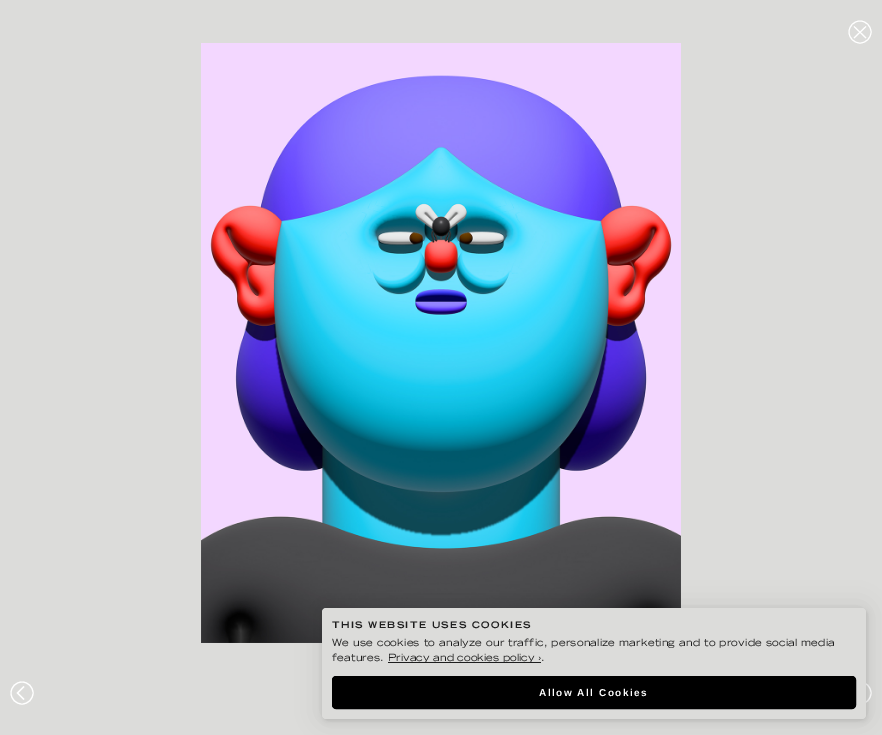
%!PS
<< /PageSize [882 735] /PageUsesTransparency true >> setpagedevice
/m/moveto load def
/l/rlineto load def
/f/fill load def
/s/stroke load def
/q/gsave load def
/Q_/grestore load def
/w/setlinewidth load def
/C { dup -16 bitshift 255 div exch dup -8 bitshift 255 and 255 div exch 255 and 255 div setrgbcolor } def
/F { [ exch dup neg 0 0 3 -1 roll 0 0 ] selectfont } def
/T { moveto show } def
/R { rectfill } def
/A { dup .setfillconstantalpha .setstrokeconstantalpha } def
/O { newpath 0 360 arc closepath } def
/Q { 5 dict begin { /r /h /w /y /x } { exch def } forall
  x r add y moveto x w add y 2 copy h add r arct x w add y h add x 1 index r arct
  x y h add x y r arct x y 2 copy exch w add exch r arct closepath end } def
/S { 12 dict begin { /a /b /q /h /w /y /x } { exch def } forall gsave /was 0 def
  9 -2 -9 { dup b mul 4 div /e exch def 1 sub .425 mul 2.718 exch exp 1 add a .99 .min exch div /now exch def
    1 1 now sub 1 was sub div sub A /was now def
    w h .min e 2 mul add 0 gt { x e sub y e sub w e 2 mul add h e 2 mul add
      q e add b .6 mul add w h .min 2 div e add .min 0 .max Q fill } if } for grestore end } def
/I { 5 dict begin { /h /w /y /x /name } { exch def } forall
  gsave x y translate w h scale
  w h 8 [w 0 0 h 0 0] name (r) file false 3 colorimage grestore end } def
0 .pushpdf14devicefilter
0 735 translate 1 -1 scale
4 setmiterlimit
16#DCDCDA C
0 0 882 735 R
16#FFFFFF C
860 32 11 O s
854 38 m 12 -11.5 l 866 38 m -12 -11.5 l s
(1.rgb) 201 43 480 600 I
1.1 w
22 693 11 O s
24 686.5 m -6.5 6.5 l 6.5 6.5 l s
860 693 11 O s
16#000000 C
323 610 544 111 4 2.5 .1 S
322 608 544 111 4 12.5 .1 S
16#DCDCDA C
322 608 544 111 4 Q f
/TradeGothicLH-Bold 9 F
16#1E1E1E C
332 628 m 1.35 0 (THIS WEBSITE USES COOKIES) ashow
/TradeGothicLH-Regular 10 F
332 646 m .2 0 (We use cookies to analyze our traffic, personalize marketing and to provide social media) ashow
332 661 m .2 0 (features.) ashow
388 662 153 1 R
(Privacy and cookies policy ›) 388 661 T
541 661 m .2 0 (.) ashow
16#000000 C
332.5 676.5 523 32 3.5 Q q f Q_
1 w
s
/LiberationSans-Bold 10 F
16#FFFFFF C
539 696 m 1.5 0 (Allow All Cookies) ashow
.poppdf14devicefilter showpage
